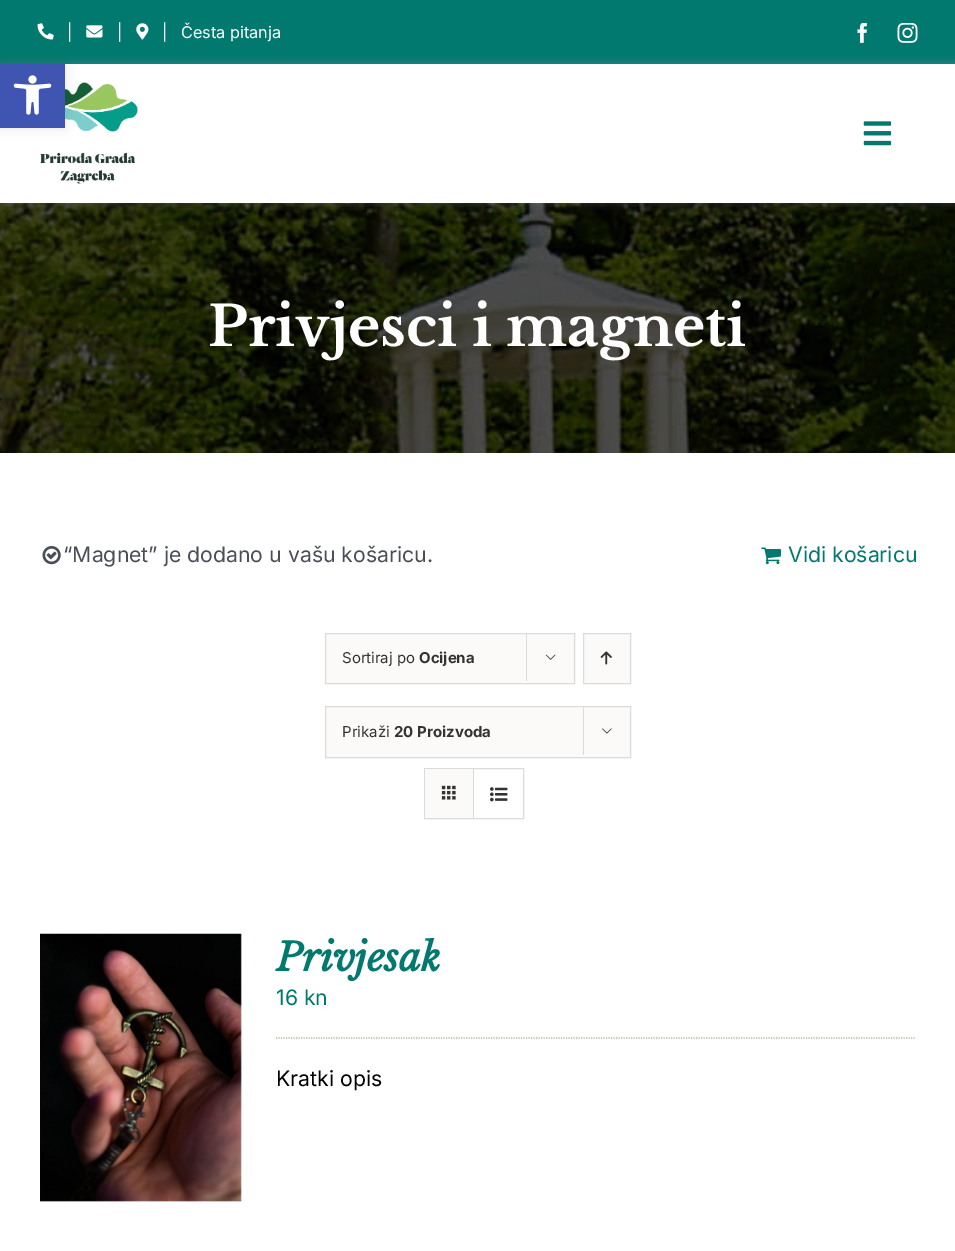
%!PS
<< /PageSize [955 1251] /PageUsesTransparency true >> setpagedevice
/m/moveto load def
/l/rlineto load def
/z/closepath load def
/f/fill load def
/s/stroke load def
/q/gsave load def
/Q_/grestore load def
/w/setlinewidth load def
/C { dup -16 bitshift 255 div exch dup -8 bitshift 255 and 255 div exch 255 and 255 div setrgbcolor } def
/F { [ exch dup neg 0 0 3 -1 roll 0 0 ] selectfont } def
/T { moveto show } def
/R { rectfill } def
/A { dup .setfillconstantalpha .setstrokeconstantalpha } def
/Q { 5 dict begin { /r /h /w /y /x } { exch def } forall
  x r add y moveto x w add y 2 copy h add r arct x w add y h add x 1 index r arct
  x y h add x y r arct x y 2 copy exch w add exch r arct closepath end } def
/S { 12 dict begin { /a /b /q /h /w /y /x } { exch def } forall gsave /was 0 def
  9 -2 -9 { dup b mul 4 div /e exch def 1 sub .425 mul 2.718 exch exp 1 add a .99 .min exch div /now exch def
    1 1 now sub 1 was sub div sub A /was now def
    w h .min e 2 mul add 0 gt { x e sub y e sub w e 2 mul add h e 2 mul add
      q e add b .6 mul add w h .min 2 div e add .min 0 .max Q fill } if } for grestore end } def
/I { 5 dict begin { /h /w /y /x /name } { exch def } forall
  gsave x y translate w h scale
  w h 8 [w 0 0 h 0 0] name (r) file false 3 colorimage grestore end } def
0 .pushpdf14devicefilter
0 1251 translate 1 -1 scale
4 setmiterlimit
16#FFFFFF C
0 0 955 1251 R
16#01796F C
0 0 955 64 R
(9.rgb) 0 203 955 250 I
16#A8A8A8 C
1 64 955 139 0 5 .3 S
16#FFFFFF C
0 64 955 139 R
(7.rgb) 40 82 98 102 I
16#000000 C
0 63 65 65 0 6 .1 S
16#4054B2 C
0 63 65 65 R
(1.rgb) 13 75 39 40 I
(2.rgb) 37 23 17 17 I
/Inter-Regular 16.25 F
16#FFFFFF C
(|) 67 38 T
(3.rgb) 86 25 17 13 I
(|) 117 38 T
(4.rgb) 136 23 13 17 I
(|) 162 38 T
(Česta pitanja) 181 38 T
(5.rgb) 857 23 10 20 I
(6.rgb) 897 23 21 20 I
(8.rgb) 863 121 29 25 I
/LibreBaskerville-Bold 55.25 F
(Privjesci i magneti) 208 346 T
(10.rgb) 42 546 19 19 I
/Inter-Regular 21.25 F
16#4A4E57 C
(“Magnet” je dodano u vašu košaricu.) 63 562 T
(11.rgb) 761 547 20 18 I
16#01796F C
(Vidi košaricu) 788 562 T
16#FBFAF9 C
325.5 633.5 m 249 0 l 0 50 l -249 0 l z q f Q_
16#DBDBDB C
s
/Inter-Regular 15 F
16#333333 C
(Sortiraj po) 342 663 T
/Inter-Bold 15 F
(Ocijena) 419 663 T
16#DBDBDB C
526 633 1 48 R
(12.rgb) 545 654 11 6 I
16#FBFAF9 C
583.5 633.5 m 47 0 l 0 50 l -47 0 l z q f Q_
16#DBDBDB C
s
(13.rgb) 600 651 12 14 I
16#FBFAF9 C
325.5 706.5 m 305 0 l 0 51 l -305 0 l z q f Q_
16#DBDBDB C
s
/Inter-Regular 15 F
16#333333 C
(Prikaži) 342 737 T
/Inter-Bold 15 F
(20 Proizvoda) 394 737 T
16#DBDBDB C
583 706 1 49 R
(14.rgb) 602 728 10 6 I
424.5 768.5 99 50 rectstroke
16#FBFAF9 C
425 769 48 49 R
16#DBDBDB C
473 769 1 49 R
(15.rgb) 441 785 15 15 I
(16.rgb) 490 787 18 15 I
(17.rgb) 40 933 202 269 I
/LibreBaskerville-BoldItalic 38.5 F
16#01796F C
(Privjesak) 276 971 T
/Inter-Regular 21.25 F
(16 kn) 276 1005 T
16#B9AFA1 C
1.2 w
[1.25 1.25] 0 setdash
276 1038 m 639 0 l s
16#000000 C
(Kratki opis) 276 1086 T
.poppdf14devicefilter showpage
